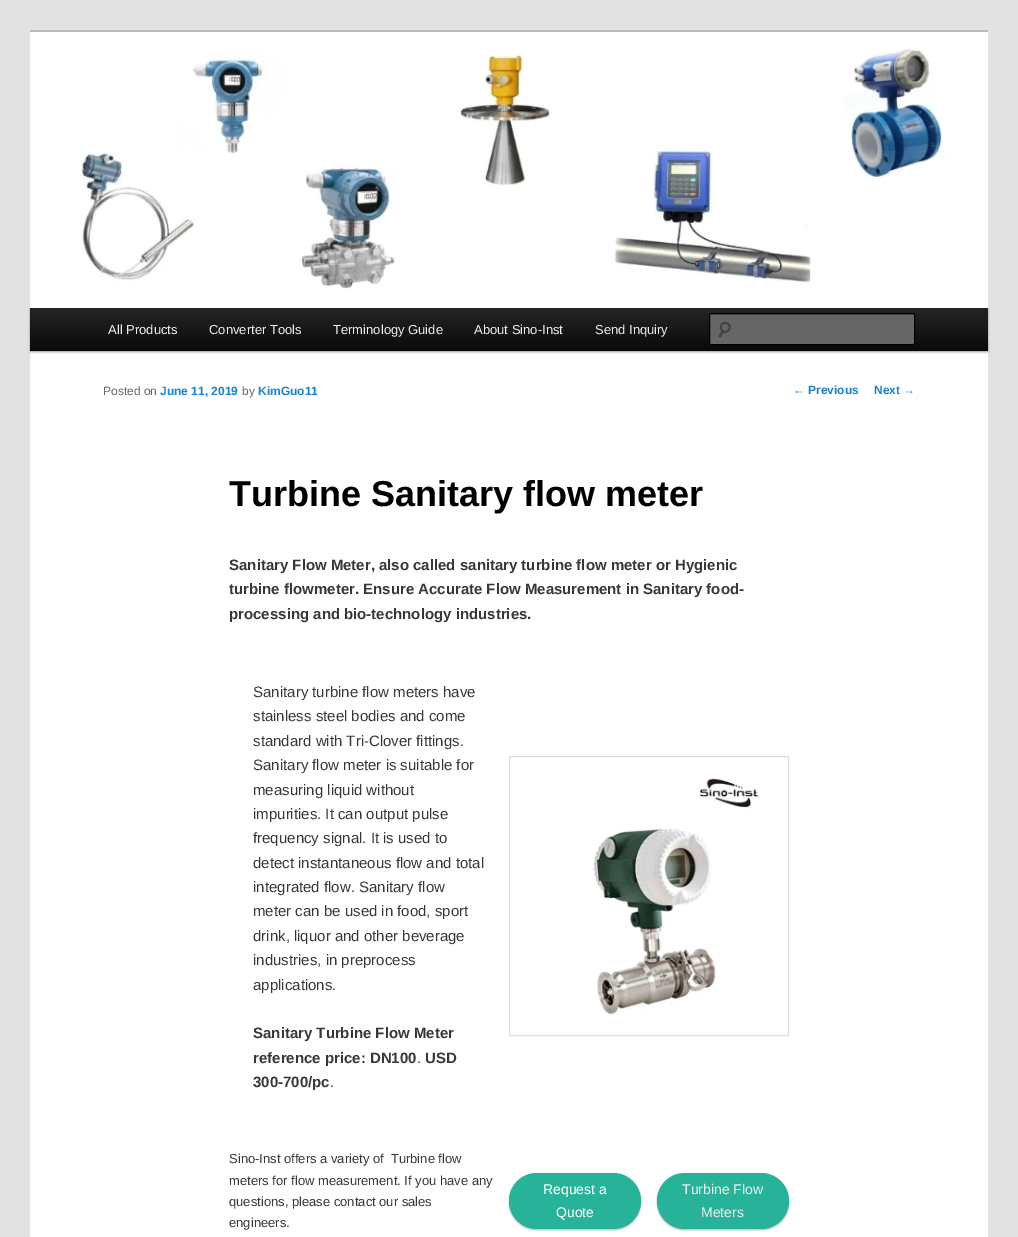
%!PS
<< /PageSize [1018 1237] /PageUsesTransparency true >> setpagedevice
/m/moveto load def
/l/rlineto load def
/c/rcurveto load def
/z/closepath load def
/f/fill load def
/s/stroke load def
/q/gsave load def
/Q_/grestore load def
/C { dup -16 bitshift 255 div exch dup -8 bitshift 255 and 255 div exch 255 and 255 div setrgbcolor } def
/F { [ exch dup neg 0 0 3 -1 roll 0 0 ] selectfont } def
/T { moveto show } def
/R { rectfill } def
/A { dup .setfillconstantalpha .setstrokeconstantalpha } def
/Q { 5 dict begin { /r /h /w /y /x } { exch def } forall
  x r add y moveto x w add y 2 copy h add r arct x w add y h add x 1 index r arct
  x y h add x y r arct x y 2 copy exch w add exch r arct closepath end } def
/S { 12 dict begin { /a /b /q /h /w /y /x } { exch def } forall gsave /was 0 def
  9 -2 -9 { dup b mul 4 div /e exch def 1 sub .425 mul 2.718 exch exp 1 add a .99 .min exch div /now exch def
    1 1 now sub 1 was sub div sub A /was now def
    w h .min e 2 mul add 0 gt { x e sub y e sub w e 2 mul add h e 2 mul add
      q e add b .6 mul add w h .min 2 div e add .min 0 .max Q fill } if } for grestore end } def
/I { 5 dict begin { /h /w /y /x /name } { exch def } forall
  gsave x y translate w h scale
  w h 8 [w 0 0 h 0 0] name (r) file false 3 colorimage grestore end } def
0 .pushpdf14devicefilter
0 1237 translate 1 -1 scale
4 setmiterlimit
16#E2E2E2 C
0 0 1018 1237 R
16#FFFFFF C
30 32 958 1205 R
16#BBBBBB C
30 30 958 2 R
16#000000 C
30 309 958 43 0 1 .4 S
(1.rgb) 30 47 958 261 I
q 30 308 m 958 0 l 0 43 l -958 0 l z clip newpath
<< /ShadingType 2 /ColorSpace /DeviceRGB /Coords [509 308 509 351] /Extend [true true] /Function << /FunctionType 2 /Domain [0 1] /C0 [.145 .145 .145] /C1 [.039 .039 .039] /N 1 >> >> shfill Q_
/LiberationSans-Regular 13 F
16#EEEEEE C
(All Products) 108 334 T
(Converter Tools) 209 334 T
(Terminology Guide) 333 334 T
(About Sino-Inst) 474 334 T
(Send Inquiry) 595 334 T
16#666666 C
709 313 206 32 2 Q f
(2.rgb) 718 321 13 17 I
16#5C5C5C C
711 315 m 203 0 l 0 1 l 0 -2 l -1 0 l -202 0 l -1 0 -1 1 -1 2 c 0 -1 0 -1 1 -1 c z f
16#000000 C
709.5 313.5 205 31 1.5 Q s
/LiberationSans-Regular 12 F
16#666666 C
(Posted on) 103 395 T
/LiberationSans-Bold 12 F
16#1982D1 C
(June 11, 2019) 160 395 T
/LiberationSans-Regular 12 F
16#666666 C
(by) 242 395 T
/LiberationSans-Bold 12 F
16#1982D1 C
(KimGuo11) 258 395 T
/LiberationSans-Bold 36 F
16#000000 C
(Turbine Sanitary flow meter) 229 506 T
/LiberationSans-Bold 15 F
16#373737 C
(Sanitary Flow Meter, also called sanitary turbine flow meter or Hygienic) 229 570 T
(turbine flowmeter. Ensure Accurate Flow Measurement in Sanitary food-) 229 594 T
(processing and bio-technology industries.) 229 619 T
/LiberationSans-Regular 15 F
(Sanitary turbine flow meters have) 253 697 T
(stainless steel bodies and come) 253 721 T
(standard with Tri-Clover fittings.) 253 746 T
(Sanitary flow meter is suitable for) 253 770 T
(measuring liquid without) 253 795 T
(impurities. It can output pulse) 253 819 T
(frequency signal. It is used to) 253 843 T
(detect instantaneous flow and total) 253 868 T
(integrated flow. Sanitary flow) 253 892 T
(meter can be used in food, sport) 253 916 T
(drink, liquor and other beverage) 253 941 T
(industries, in preprocess) 253 965 T
(applications.) 253 990 T
/LiberationSans-Bold 15 F
(Sanitary Turbine Flow Meter) 253 1038 T
(reference price: DN100) 253 1063 T
/LiberationSans-Regular 15 F
(.) 417 1063 T
/LiberationSans-Bold 15 F
(USD) 425 1063 T
(300-700/pc) 253 1087 T
/LiberationSans-Regular 15 F
(.) 330 1087 T
16#DDDDDD C
509.5 756.5 279 279 rectstroke
(3.rgb) 593 778 166 237 I
/LiberationSans-Regular 13 F
16#373737 C
(Sino-Inst offers a variety of  Turbine flow) 229 1163 T
(meters for flow measurement. If you have any) 229 1185 T
(questions, please contact our sales) 229 1206 T
(engineers.) 229 1227 T
16#000000 C
509 1174 132 56 28 1 .3 S
16#27B399 C
509 1173 132 56 28 Q f
/LiberationSans-Regular 14 F
16#FFFFFF C
(Request a) 543 1194 T
(Quote) 556 1217 T
16#000000 C
657 1174 132 56 28 1 .3 S
16#27B399 C
657 1173 132 56 28 Q f
16#EEEEEE C
(Turbine Flow) 682 1194 T
(Meters) 701 1217 T
/LiberationSans-Regular 12 F
16#1982D1 C
(←) 793 394 T
/LiberationSans-Bold 12 F
(Previous) 808 394 T
(Next) 874 394 T
/LiberationSans-Regular 12 F
(→) 903 394 T
.poppdf14devicefilter showpage
